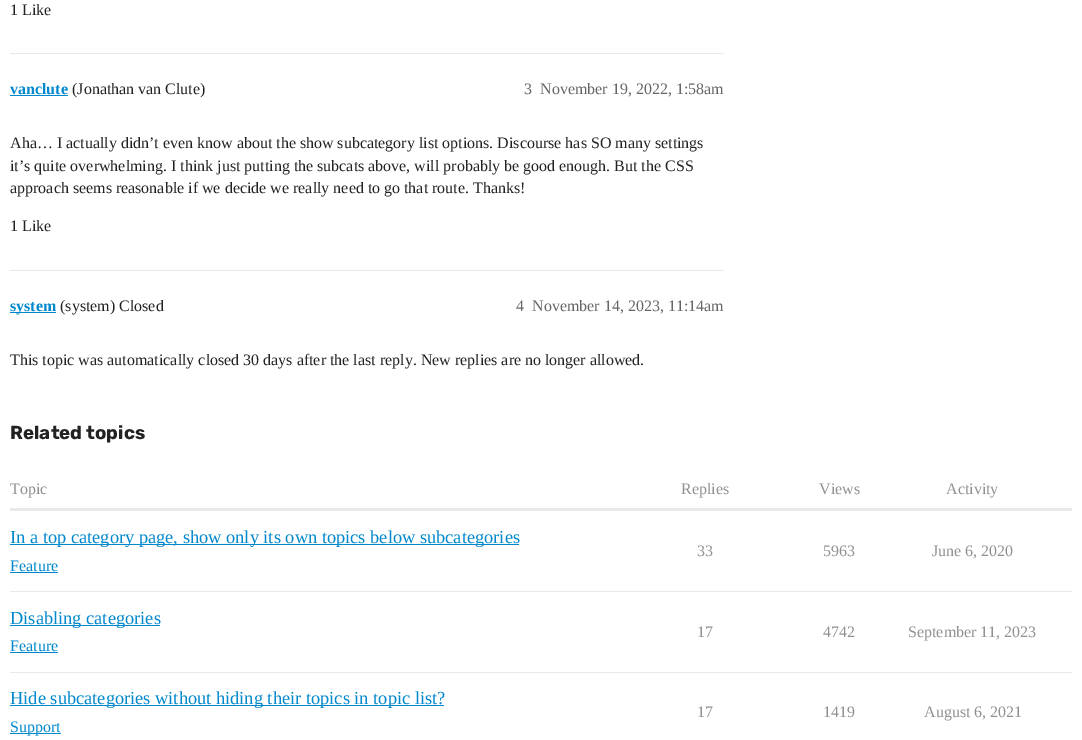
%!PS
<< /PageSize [1082 740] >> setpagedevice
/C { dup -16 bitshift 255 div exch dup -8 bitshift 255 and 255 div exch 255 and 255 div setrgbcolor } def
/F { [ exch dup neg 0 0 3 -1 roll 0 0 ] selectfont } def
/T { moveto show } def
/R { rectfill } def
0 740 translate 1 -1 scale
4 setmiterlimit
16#FFFFFF C
0 0 1082 740 R
/LiberationSerif-Regular 16 F
16#222222 C
(1 Like) 10 15 T
16#E9E9E9 C
10 53 714 1 R
/LiberationSerif-Bold 16 F
16#0088CC C
(vanclute) 10 94 T
10 95 58 1 R
/LiberationSerif-Regular 16 F
16#222222 C
(\(Jonathan van Clute\)) 72 94 T
16#666666 C
(3) 524 94 T
(November 19, 2022, 1:58am) 540 94 T
16#222222 C
(Aha… I actually didn’t even know about the show subcategory list options. Discourse has SO many settings) 10 148 T
(it’s quite overwhelming. I think just putting the subcats above, will probably be good enough. But the CSS) 10 171 T
(approach seems reasonable if we decide we really need to go that route. Thanks!) 10 193 T
(1 Like) 10 231 T
16#E9E9E9 C
10 270 714 1 R
16#0088CC C
10 312 46 1 R
/LiberationSerif-Bold 16 F
(system) 10 311 T
/LiberationSerif-Regular 16 F
16#222222 C
(\(system\) Closed) 60 311 T
16#666666 C
(4) 516 311 T
(November 14, 2023, 11:14am) 532 311 T
16#222222 C
(This topic was automatically closed 30 days after the last reply. New replies are no longer allowed.) 10 365 T
/Rubik-Bold 18.75 F
(Related topics) 10 439 T
/LiberationSerif-Regular 16 F
16#919191 C
(Topic) 10 494 T
(Replies) 681 494 T
(Views) 819 494 T
(Activity) 946 494 T
16#E9E9E9 C
10 508 1062 3 R
10 591 1062 1 R
16#0088CC C
10 544 509 1 R
/LiberationSerif-Regular 18.4 F
(In a top category page, show only its own topics below subcategories) 10 543 T
/LiberationSerif-Regular 16 F
(Feature) 10 571 T
10 572 48 1 R
16#919191 C
(33) 697 556 T
(5963) 823 556 T
(June 6, 2020) 932 556 T
16#E9E9E9 C
10 672 1062 1 R
16#0088CC C
10 625 150 1 R
/LiberationSerif-Regular 18.4 F
(Disabling categories) 10 624 T
/LiberationSerif-Regular 16 F
(Feature) 10 651 T
10 652 48 1 R
16#919191 C
(17) 697 637 T
(4742) 823 637 T
(September 11, 2023) 908 637 T
16#0088CC C
10 705 434 1 R
/LiberationSerif-Regular 18.4 F
(Hide subcategories without hiding their topics in topic list?) 10 704 T
10 733 51 1 R
/LiberationSerif-Regular 16 F
(Support) 10 732 T
16#919191 C
(17) 697 717 T
(1419) 823 717 T
(August 6, 2021) 924 717 T
showpage
